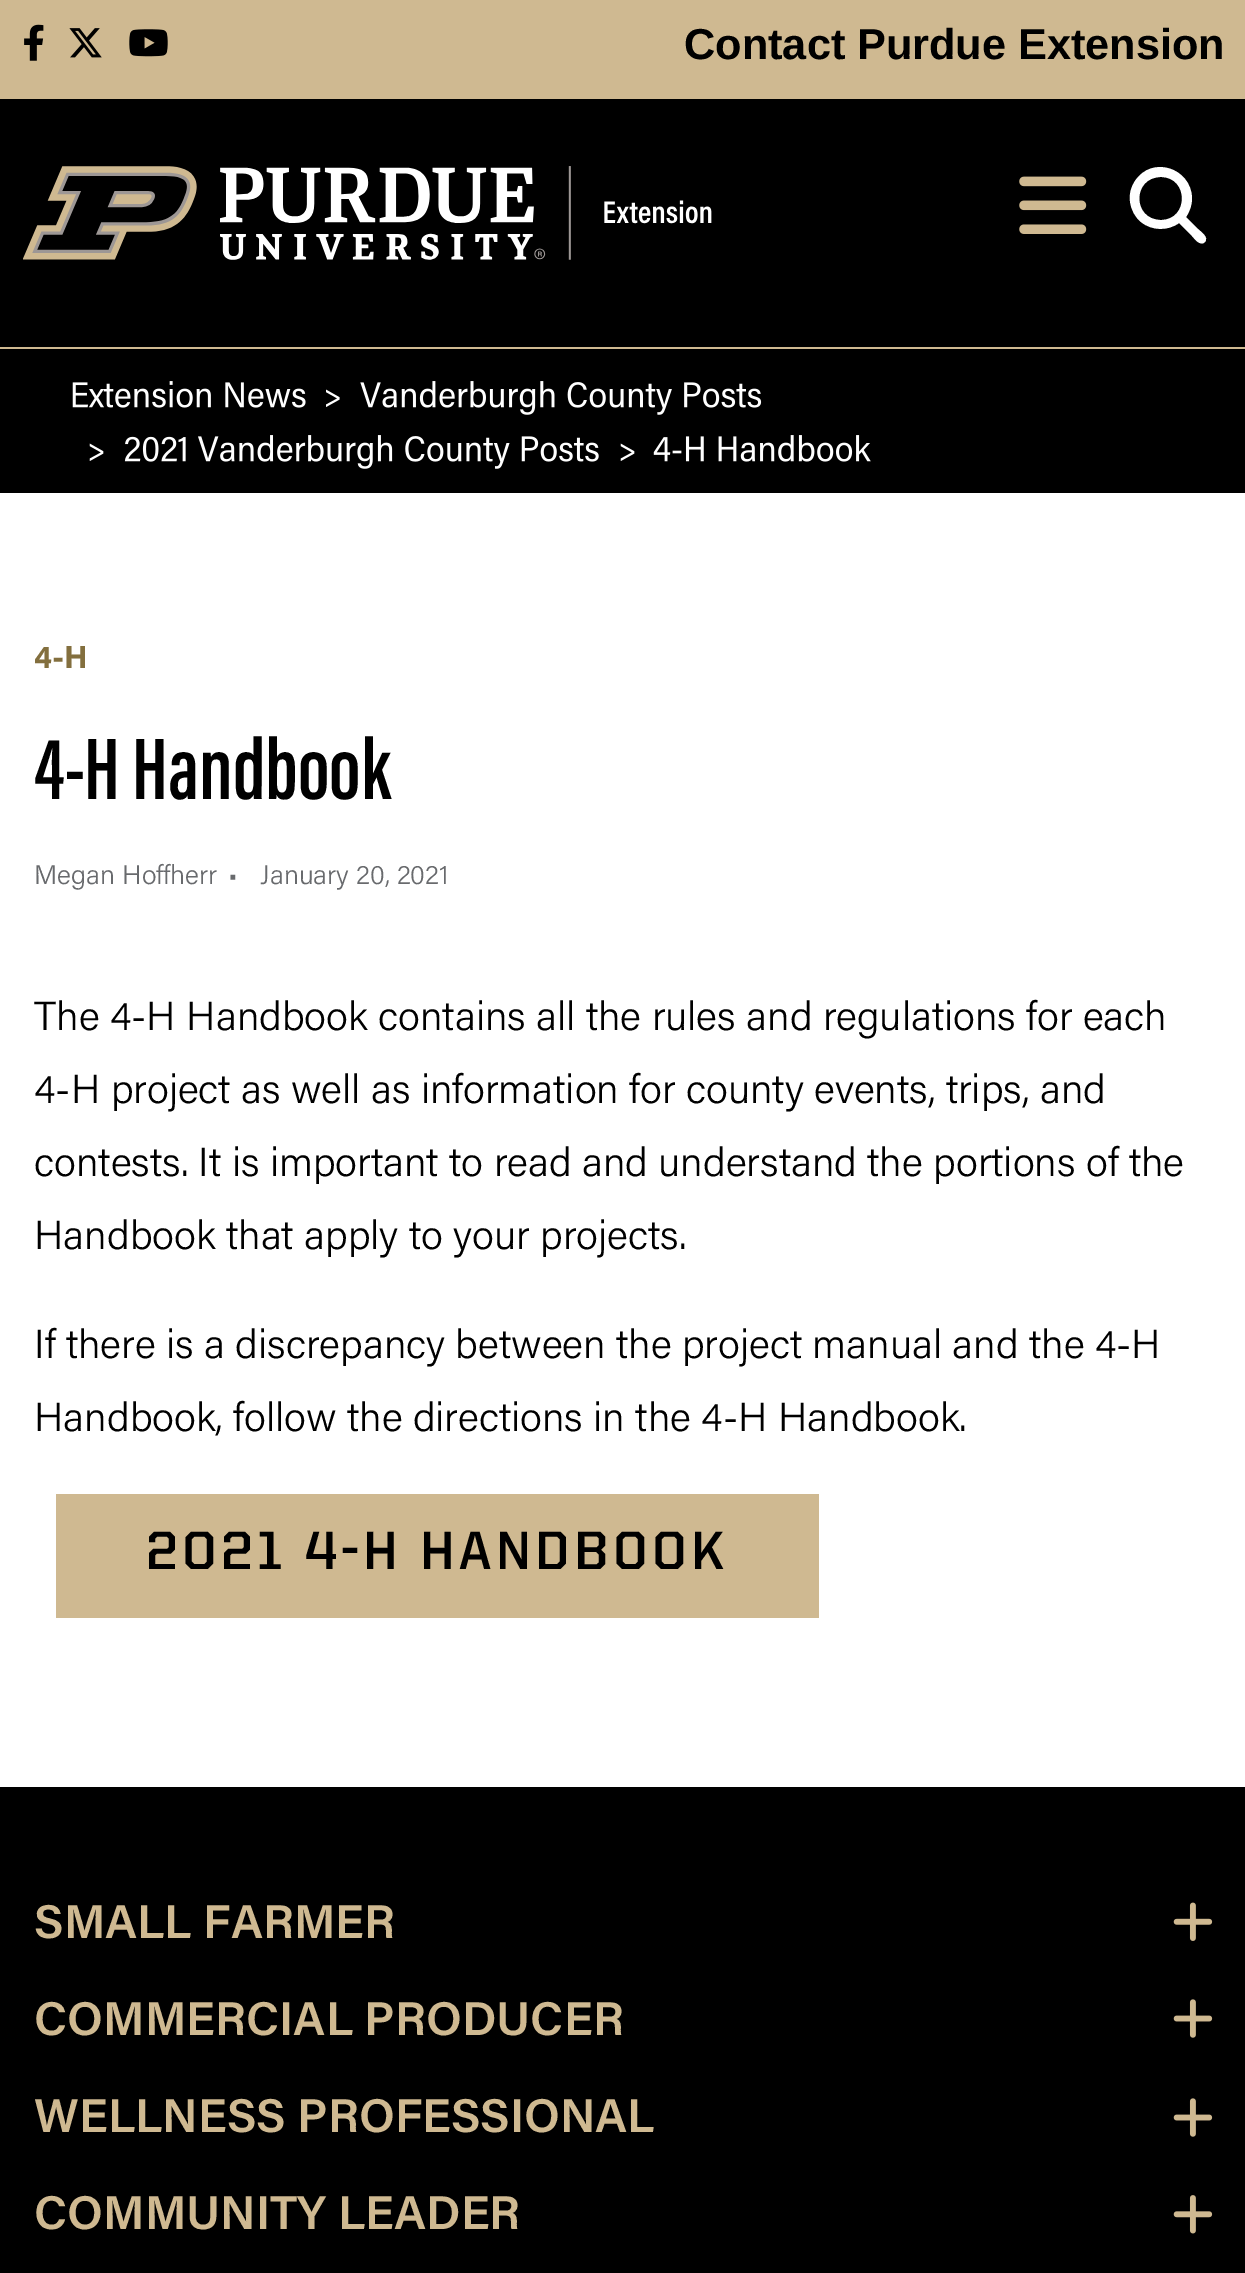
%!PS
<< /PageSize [1245 2273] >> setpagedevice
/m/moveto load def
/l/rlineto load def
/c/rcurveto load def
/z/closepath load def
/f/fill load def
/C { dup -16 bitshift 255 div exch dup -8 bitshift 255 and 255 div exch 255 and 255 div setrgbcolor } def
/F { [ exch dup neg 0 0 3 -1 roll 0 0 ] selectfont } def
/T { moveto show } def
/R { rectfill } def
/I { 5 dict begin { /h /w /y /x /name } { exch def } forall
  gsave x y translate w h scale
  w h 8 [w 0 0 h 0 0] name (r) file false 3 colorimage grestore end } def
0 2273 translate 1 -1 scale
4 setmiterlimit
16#FFFFFF C
0 0 1245 2273 R
16#CFB991 C
0 0 1245 99 R
(1.rgb) 24 24 20 37 I
(2.rgb) 69 28 33 30 I
(3.rgb) 129 29 39 28 I
/LiberationSans-Bold 43.25 F
16#000000 C
(Contact Purdue Extension) 684 59 T
0 99 1245 248 R
16#CFB991 C
0 347 1245 2 R
(4.rgb) 23 166 689 94 I
(5.rgb) 1019 176 68 58 I
16#FFFFFF C
1192 198 m 0 7 -2 13 -6 19 c 12 12 l 3 3 11 8 7 13 c -5 5 -11 -4 -13 -6 c -13 -13 l -11 8 -27 8 -38 -1 c -6 -5 -10 -12 -11 -21 c -1 -7 1 -14 5 -20 c 17 -26 56 -13 57 17 c z 1161 220 m 28 0 28 -43 0 -43 c -29 0 -29 43 0 43 c z f
16#000000 C
0 349 1245 144 R
(6.rgb) 72 381 234 27 I
(7.rgb) 326 389 14 18 I
(8.rgb) 360 381 402 34 I
(9.rgb) 89 443 15 18 I
(10.rgb) 124 435 475 34 I
(9.rgb) 620 443 15 18 I
(11.rgb) 653 435 218 27 I
/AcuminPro-Bold 32 F
16#836F3E C
(4-H) 34 668 T
/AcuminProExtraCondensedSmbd-SemiBold 90 F
16#000000 C
(4-H Handbook) 34 799 T
/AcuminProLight-Light 27 F
16#686A6D C
(Megan Hoffherr) 34 884 T
(•) 228 884 T
(January 20, 2021) 260 884 T
/AcuminProLight-Light 40.5 F
16#000000 C
(The 4-H Handbook contains all the rules and regulations for each) 34 1030 T
(4-H project as well as information for county events, trips, and) 34 1103 T
(contests. It is important to read and understand the portions of the) 34 1176 T
(Handbook that apply to your projects.) 34 1249 T
(If there is a discrepancy between the project manual and the 4-H) 34 1358 T
(Handbook, follow the directions in the 4-H Handbook.) 34 1431 T
16#CFB991 C
56 1494 763 124 R
/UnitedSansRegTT-Bold 54 F
16#000000 C
146 1569 m 4.5 0 (2021 4-H HANDBOOK) ashow
0 1787 1245 486 R
/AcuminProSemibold-SemiBold 47.25 F
16#CFB991 C
(SMALL FARMER) 34 1938 T
(12.rgb) 1173 1902 40 39 I
(COMMERCIAL PRODUCER) 34 2035 T
(13.rgb) 1173 1999 40 39 I
(WELLNESS PROFESSIONAL) 34 2132 T
(13.rgb) 1173 2098 40 39 I
(COMMUNITY LEADER) 34 2229 T
(14.rgb) 1173 2195 40 39 I
showpage
